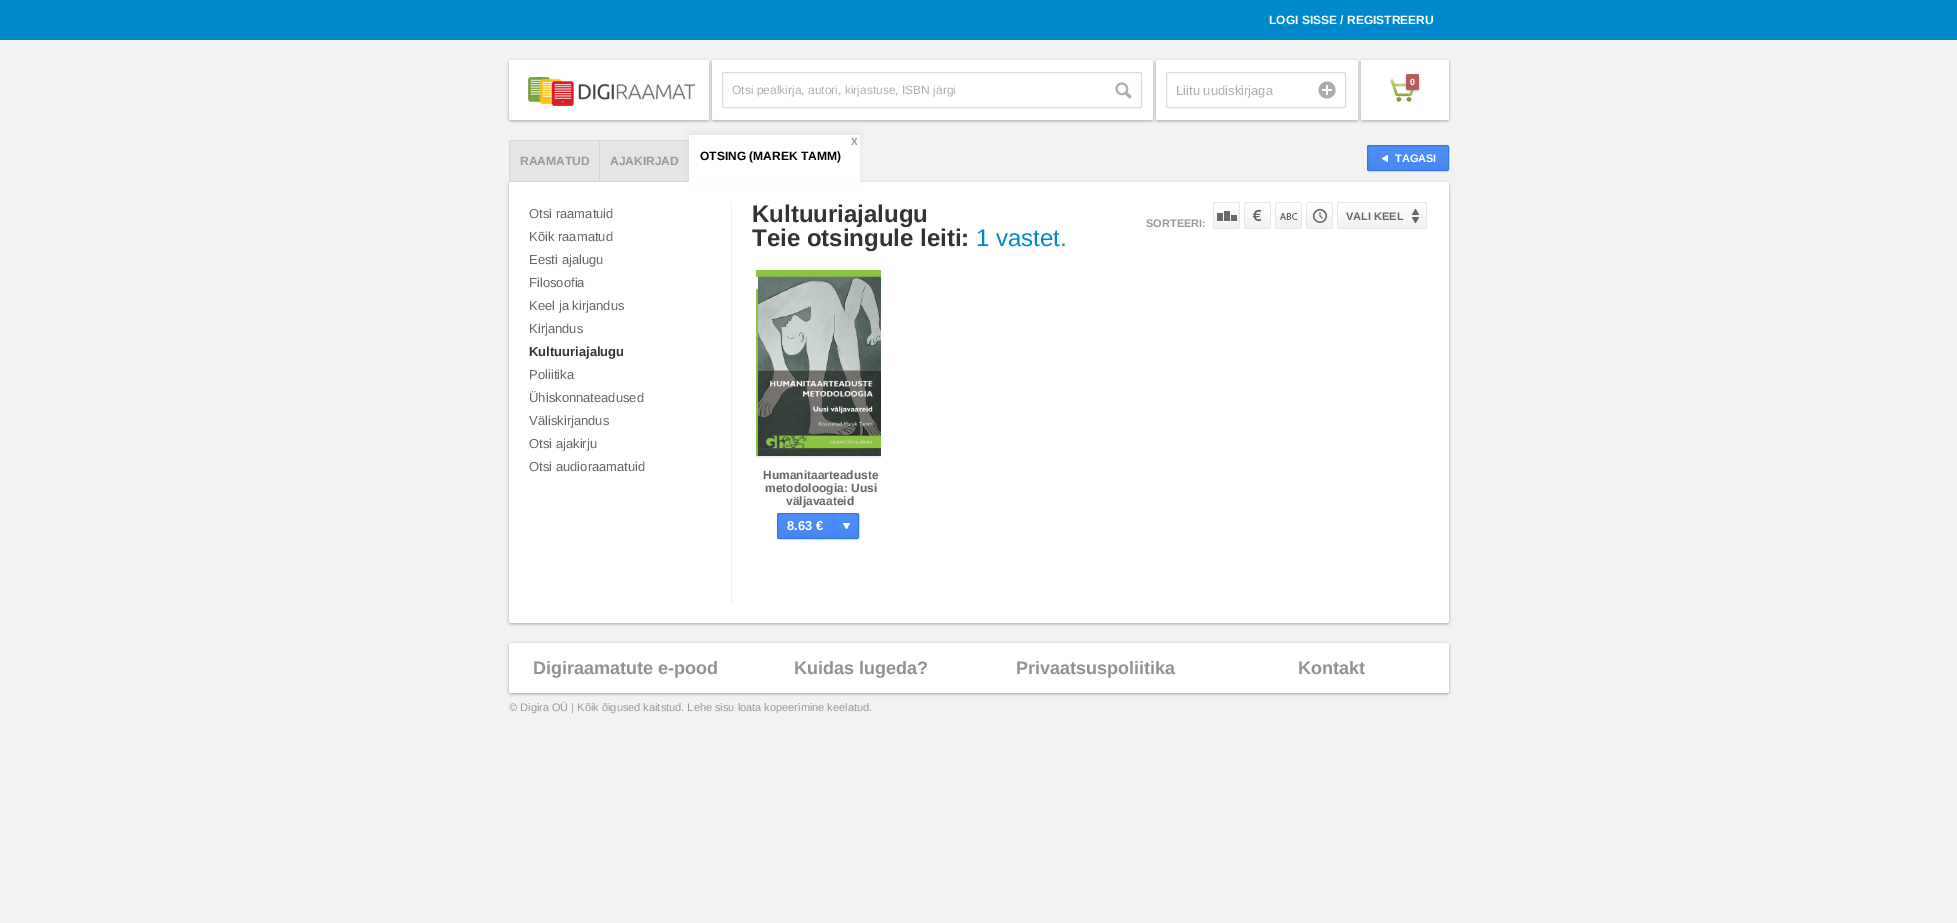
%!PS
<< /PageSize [1957 923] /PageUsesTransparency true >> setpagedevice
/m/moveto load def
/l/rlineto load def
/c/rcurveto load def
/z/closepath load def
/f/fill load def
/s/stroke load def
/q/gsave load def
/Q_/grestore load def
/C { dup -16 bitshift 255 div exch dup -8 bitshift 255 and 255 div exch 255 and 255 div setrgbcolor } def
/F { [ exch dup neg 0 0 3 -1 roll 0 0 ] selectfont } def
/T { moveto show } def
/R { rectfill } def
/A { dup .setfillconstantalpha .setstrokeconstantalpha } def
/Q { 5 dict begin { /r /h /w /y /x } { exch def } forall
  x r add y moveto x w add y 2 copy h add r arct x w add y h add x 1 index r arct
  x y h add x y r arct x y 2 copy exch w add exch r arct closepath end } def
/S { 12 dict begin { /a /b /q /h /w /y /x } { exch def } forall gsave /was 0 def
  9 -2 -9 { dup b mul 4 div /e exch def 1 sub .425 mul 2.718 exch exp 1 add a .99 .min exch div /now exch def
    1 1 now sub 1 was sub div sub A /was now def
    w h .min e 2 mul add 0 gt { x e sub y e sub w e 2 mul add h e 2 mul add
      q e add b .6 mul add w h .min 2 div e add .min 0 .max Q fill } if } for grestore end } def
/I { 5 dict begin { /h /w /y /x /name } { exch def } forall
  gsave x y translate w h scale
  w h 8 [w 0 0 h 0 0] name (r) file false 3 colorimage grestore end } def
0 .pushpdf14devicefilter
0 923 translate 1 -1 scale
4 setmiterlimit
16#F2F2F2 C
0 0 1957 923 R
16#0088CC C
0 0 1957 40 R
/LiberationSans-Bold 12 F
16#FFFFFF C
(LOGI SISSE / REGISTREERU) 1269 24 T
16#000000 C
509 61 200 60 2 1.5 .3 S
16#FFFFFF C
509 60 200 60 2 Q f
(1.rgb) 528 77 167 29 I
16#000000 C
712 61 441 60 2 1.5 .3 S
16#FFFFFF C
712 60 441 60 2 Q f
16#000000 C
1156 61 202 60 2 1.5 .3 S
16#FFFFFF C
1156 60 202 60 2 Q f
16#000000 C
1361 61 88 60 2 1.5 .3 S
16#FFFFFF C
1361 60 88 60 2 Q f
(2.rgb) 1390 79 24 23 I
16#000000 C
1406 75 13 16 2 1 .25 S
16#B75C5C C
1406 74 13 16 2 Q f
/LiberationSans-Bold 9 F
16#FFFFFF C
(0) 1410 85 T
16#DCDCDC C
722.5 72.5 419 35 1.5 Q s
/LiberationSans-Regular 12 F
16#AEAEAE C
(Otsi pealkirja, autori, kirjastuse, ISBN järgi) 732 94 T
(3.rgb) 1115 82 17 17 I
16#DCDCDC C
1166.5 72.5 179 35 1.5 Q s
/LiberationSans-Regular 13 F
16#AEAEAE C
(Liitu uudiskirjaga) 1176 95 T
(4.rgb) 1318 81 18 18 I
16#000000 C
509 183 940 441 2 1.5 .3 S
16#E5E5E5 C
511 140 m 88 0 l 0 42 l -90 0 l 0 -40 l 0 -1 1 -2 2 -2 c z f
16#D5D5D5 C
510 140 179 1 R
509 181 180 1 R
509 141 1 41 R
/LiberationSans-Bold 12 F
16#999999 C
(RAAMATUD) 520 165 T
16#E5E5E5 C
600 141 89 40 R
16#D5D5D5 C
599 140 1 42 R
16#999999 C
(AJAKIRJAD) 610 165 T
16#FFFFFF C
509 182 940 441 2 Q f
16#000000 C
689 132 171 47 2 4 .05 S
16#FFFFFF C
691 135 m 167 0 l 1 0 2 1 2 2 c 0 45 l -171 0 l 0 -45 l 0 -1 1 -2 2 -2 c z f
/LiberationSans-Bold 10 F
16#999999 C
(X) 851 145 T
/LiberationSans-Bold 12 F
16#000000 C
(OTSING \(MAREK TAMM\)) 700 160 T
/LiberationSans-Regular 13 F
16#666666 C
(Otsi raamatuid) 529 218 T
(Kõik raamatud) 529 241 T
(Eesti ajalugu) 529 264 T
(Filosoofia) 529 287 T
(Keel ja kirjandus) 529 310 T
(Kirjandus) 529 333 T
/LiberationSans-Bold 13 F
16#333333 C
(Kultuuriajalugu) 529 356 T
/LiberationSans-Regular 13 F
16#666666 C
(Poliitika) 529 379 T
(Ühiskonnateadused) 529 402 T
(Väliskirjandus) 529 425 T
(Otsi ajakirju) 529 448 T
(Otsi audioraamatuid) 529 471 T
16#EFEFEF C
731 202 1 401 R
/LiberationSans-Bold 24 F
16#333333 C
(Kultuuriajalugu) 752 222 T
(Teie otsingule leiti:) 752 246 T
/LiberationSans-Regular 24 F
16#0088CC C
(1 vastet.) 976 246 T
(5.rgb) 1213 202 27 27 I
(6.rgb) 1244 202 27 27 I
(7.rgb) 1275 202 27 27 I
(8.rgb) 1306 202 27 27 I
(9.rgb) 1337 202 90 27 I
/LiberationSans-Bold 11 F
16#666666 C
(VALI KEEL) 1346 220 T
16#999999 C
(SORTEERI:) 1146 227 T
q
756 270 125 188 rectclip
16#000000 C
756 272 125 186 0 2.5 .1 S
Q_
(10.rgb) 756 270 125 186 I
/LiberationSans-Bold 12 F
16#666666 C
(Humanitaarteaduste) 763 479 T
(metodoloogia: Uusi) 765 492 T
(väljavaateid) 786 505 T
q
777 513 82 26 2 Q clip newpath
q 777 514 m 82 0 l 0 24 l -82 0 l z clip newpath
<< /ShadingType 2 /ColorSpace /DeviceRGB /Coords [818 514 818 538] /Extend [true true] /Function << /FunctionType 2 /Domain [0 1] /C0 [.302 .565 .996] /C1 [.278 .529 .929] /N 1 >> >> shfill Q_
Q_
16#3079ED C
777.5 513.5 81 25 1.5 Q s
/LiberationSans-Bold 13 F
16#FFFFFF C
(8.63 €) 787 530 T
(11.rgb) 843 523 7 6 I
16#4B80F1 C
833 514 1 24 R
q
1367 145 82 26 2 Q clip newpath
q 1367 146 m 82 0 l 0 24 l -82 0 l z clip newpath
<< /ShadingType 2 /ColorSpace /DeviceRGB /Coords [1408 146 1408 170] /Extend [true true] /Function << /FunctionType 2 /Domain [0 1] /C0 [.302 .565 .996] /C1 [.278 .529 .929] /N 1 >> >> shfill Q_
Q_
16#3079ED C
1367.5 145.5 81 25 1.5 Q s
(12.rgb) 1382 155 6 7 I
/LiberationSans-Bold 11 F
16#FFFFFF C
(TAGASI) 1395 162 T
16#000000 C
509 644 940 50 2 1.5 .3 S
16#FFFFFF C
509 643 940 50 2 Q f
/LiberationSans-Bold 18 F
16#919191 C
(Digiraamatute e-pood) 533 674 T
(Kuidas lugeda?) 794 674 T
(Privaatsuspoliitika) 1016 674 T
(Kontakt) 1298 674 T
/LiberationSans-Regular 11 F
16#999999 C
(© Digira OÜ | Kõik õigused kaitstud. Lehe sisu loata kopeerimine keelatud.) 509 711 T
.poppdf14devicefilter showpage
